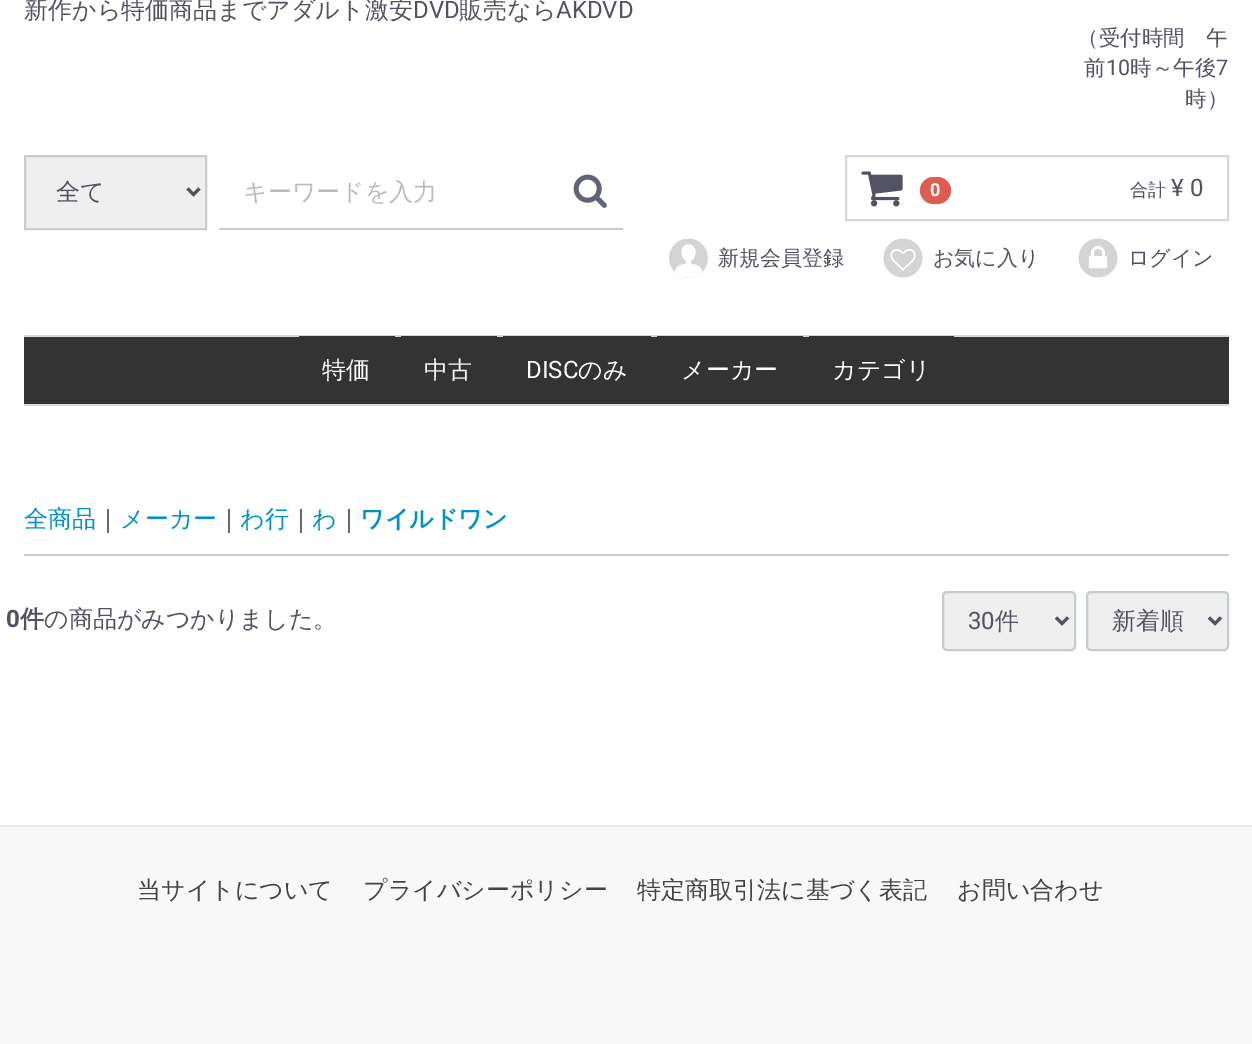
%!PS
<< /PageSize [1252 1044] >> setpagedevice
/m/moveto load def
/l/rlineto load def
/z/closepath load def
/f/fill load def
/s/stroke load def
/q/gsave load def
/Q_/grestore load def
/w/setlinewidth load def
/C { dup -16 bitshift 255 div exch dup -8 bitshift 255 and 255 div exch 255 and 255 div setrgbcolor } def
/F { [ exch dup neg 0 0 3 -1 roll 0 0 ] selectfont } def
/T { moveto show } def
/R { rectfill } def
/Q { 5 dict begin { /r /h /w /y /x } { exch def } forall
  x r add y moveto x w add y 2 copy h add r arct x w add y h add x 1 index r arct
  x y h add x y r arct x y 2 copy exch w add exch r arct closepath end } def
/I { 5 dict begin { /h /w /y /x /name } { exch def } forall
  gsave x y translate w h scale
  w h 8 [w 0 0 h 0 0] name (r) file false 3 colorimage grestore end } def
0 1044 translate 1 -1 scale
4 setmiterlimit
16#FFFFFF C
0 0 1252 1044 R
/WenQuanYiZenHei-Medium 24 F
16#525263 C
(新作から特価商品までアダルト激安) 24 18 T
/Roboto-Regular 24 F
(DVD) 413 18 T
/WenQuanYiZenHei-Medium 24 F
(販売なら) 459 18 T
/Roboto-Regular 24 F
(AKDVD) 556 18 T
/WenQuanYiZenHei-Medium 21.5 F
(（受付時間　午) 1077 45 T
(前) 1084 75 T
/Roboto-Regular 21.5 F
(10) 1106 75 T
/WenQuanYiZenHei-Medium 21.5 F
(時～午後) 1130 75 T
/Roboto-Regular 21.5 F
(7) 1216 75 T
/WenQuanYiZenHei-Medium 21.5 F
(時）) 1185 106 T
16#EFEFEF C
25 156 m 181 0 l 0 73 l -181 0 l z q f Q_
16#CCCCCC C
2 w
s
16#525263 C
3 w
187.5 188.5 m 6 6 l 6 -6 l s
/WenQuanYiZenHei-Medium 24 F
(全て) 56 200 T
16#CCCCCC C
219 228 404 2 R
16#BBBBBB C
(キーワードを入力) 243 200 T
(1.rgb) 573 174 34 34 I
16#D9D9D9 C
2 w
846 156 382 64 rectstroke
(2.rgb) 861 171 42 36 I
16#DE5D50 C
920 177 31 27 13.5 Q f
/Roboto-Bold 18 F
16#FFFFFF C
(0) 930 196 T
/WenQuanYiZenHei-Medium 18 F
16#525263 C
(合計) 1130 196 T
/Roboto-Regular 24 F
(¥ 0) 1171 196 T
(3.rgb) 669 238 39 40 I
/WenQuanYiZenHei-Medium 21 F
(新規会員登録) 718 265 T
(4.rgb) 883 238 40 40 I
(お気に入り) 933 265 T
(5.rgb) 1078 238 40 40 I
(ログイン) 1128 265 T
16#333333 C
24 337 1205 67 R
16#D9D9D9 C
24 335 1205 2 R
24 404 1205 2 R
16#333333 C
299 336 96 1 R
/WenQuanYiZenHei-Medium 24 F
16#FFFFFF C
(特価) 322 378 T
16#333333 C
401 336 96 1 R
16#FFFFFF C
(中古) 424 378 T
16#333333 C
503 336 148 1 R
/Roboto-Regular 24 F
16#FFFFFF C
(DISC) 526 378 T
/WenQuanYiZenHei-Medium 24 F
(のみ) 578 378 T
16#333333 C
657 336 146 1 R
16#FFFFFF C
(メーカー) 681 378 T
16#333333 C
809 336 145 1 R
16#FFFFFF C
(カテゴリ) 832 378 T
16#CCCCCC C
24 554 1205 2 R
16#0092C4 C
(全商品) 24 527 T
16#333333 C
(｜) 96 527 T
16#0092C4 C
(メーカー) 120 527 T
16#333333 C
(｜) 217 527 T
16#0092C4 C
(わ行) 240 527 T
16#333333 C
(｜) 289 527 T
16#0092C4 C
(わ) 312 527 T
16#333333 C
(｜) 337 527 T
/WenQuanYiZenHei-Bold 24 F
16#0092C4 C
(ワイルドワン) 360 527 T
/Roboto-Bold 24 F
16#525263 C
(0) 6 627 T
/WenQuanYiZenHei-Bold 24 F
(件) 20 627 T
/WenQuanYiZenHei-Medium 24 F
(の商品がみつかりました。) 44 627 T
16#EFEFEF C
943 592 132 58 4 Q q f Q_
16#C4CCCE C
s
16#525263 C
3 w
1056 617.5 m 6 6 l 6 -6 l s
/Roboto-Regular 24 F
(30) 968 629 T
/WenQuanYiZenHei-Medium 24 F
(件) 995 629 T
16#EFEFEF C
1087 592 141 58 4 Q q f Q_
16#C4CCCE C
2 w
s
16#525263 C
3 w
1209 617.5 m 6 6 l 6 -6 l s
(新着順) 1112 629 T
16#F8F8F8 C
0 827 1252 217 R
16#E8E8E8 C
0 825 1252 2 R
16#444444 C
(当サイトについて) 137 898 T
(プライバシーポリシー) 363 898 T
(特定商取引法に基づく表記) 637 898 T
(お問い合わせ) 957 898 T
showpage
